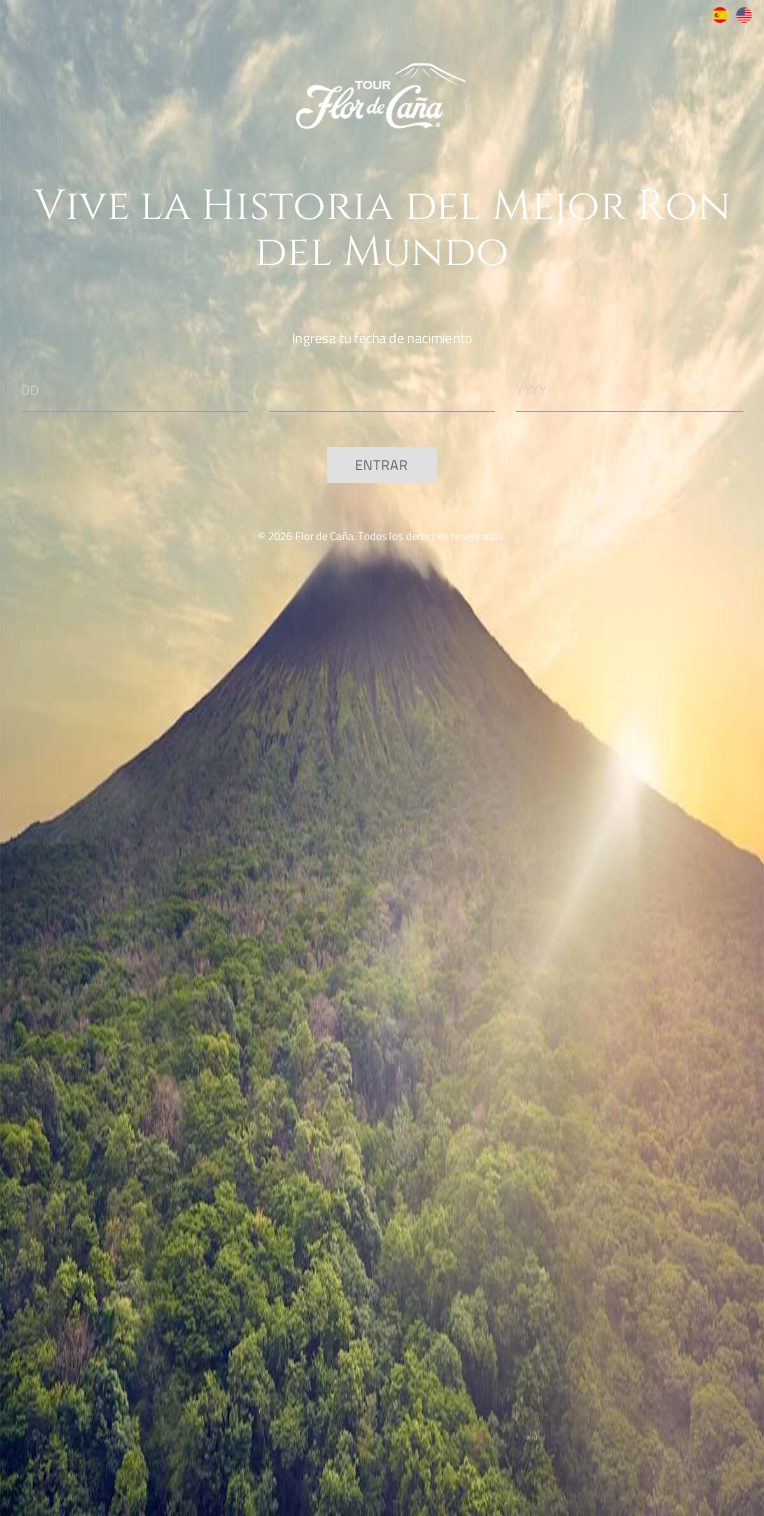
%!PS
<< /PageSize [764 1516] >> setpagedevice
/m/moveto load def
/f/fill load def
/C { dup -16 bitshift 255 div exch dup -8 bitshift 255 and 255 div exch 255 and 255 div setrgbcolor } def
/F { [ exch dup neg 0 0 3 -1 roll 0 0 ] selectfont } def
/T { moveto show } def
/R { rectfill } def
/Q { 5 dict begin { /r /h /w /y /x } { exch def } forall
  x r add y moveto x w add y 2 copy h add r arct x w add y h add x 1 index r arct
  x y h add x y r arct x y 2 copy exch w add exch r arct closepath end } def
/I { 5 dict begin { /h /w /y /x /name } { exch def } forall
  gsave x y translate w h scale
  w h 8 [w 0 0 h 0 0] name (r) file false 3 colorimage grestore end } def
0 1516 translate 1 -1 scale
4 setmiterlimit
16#FFFFFF C
0 0 764 1516 R
(1.rgb) 0 0 764 1516 I
(2.rgb) 712 7 16 16 I
(3.rgb) 736 7 16 16 I
(4.rgb) 296 62 170 67 I
/Cinzel-Regular 42 F
(Vive la Historia del Mejor Ron) 34 219 T
(del Mundo) 255 265 T
/TitilliumWeb-Regular 14 F
(Ingresa tu fecha de nacimiento) 292 343 T
16#9E9E9E C
21 411 227 1 R
16#D1D1D1 C
(DD) 21 395 T
16#9E9E9E C
516 411 227 1 R
16#D1D1D1 C
(YYYY) 516 395 T
16#9E9E9E C
269 411 226 1 R
16#E0E0E0 C
327 447 110 36 2 Q f
16#616161 C
355 470 m .5 0 (ENTRAR) ashow
/TitilliumWeb-Regular 11.2 F
16#FFFFFF C
(© 2026 Flor de Caña. Todos los derechos reservados.) 258 540 T
showpage
